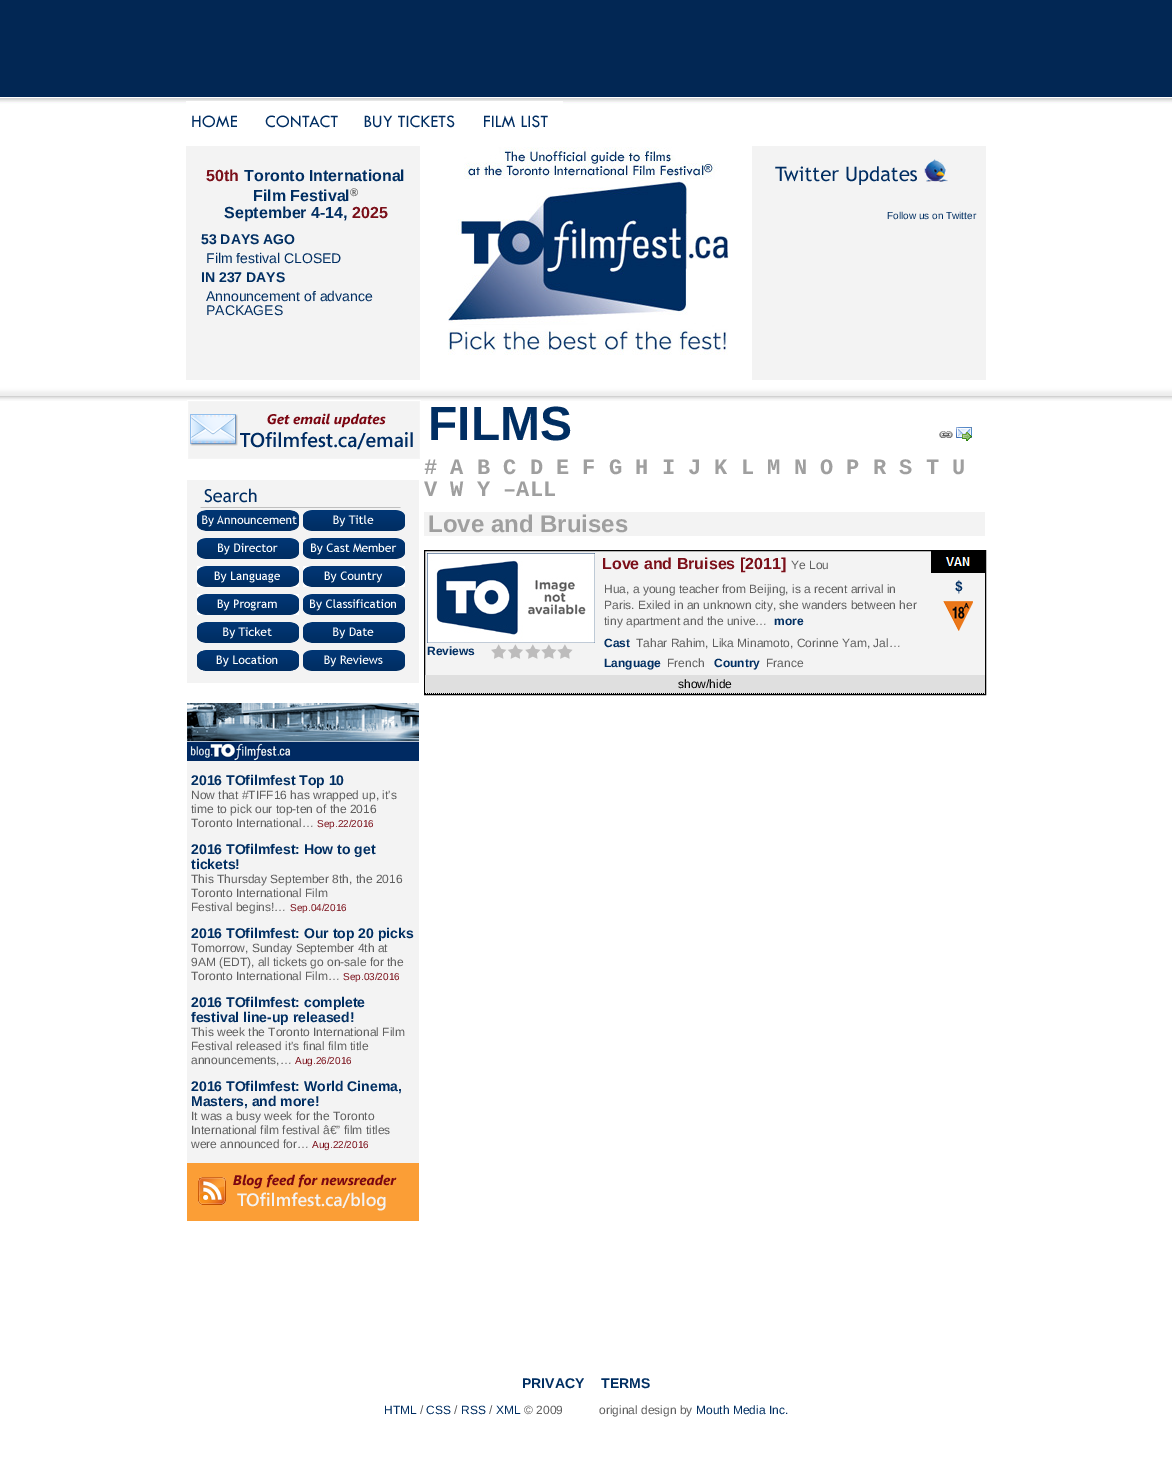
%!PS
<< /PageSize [1172 1478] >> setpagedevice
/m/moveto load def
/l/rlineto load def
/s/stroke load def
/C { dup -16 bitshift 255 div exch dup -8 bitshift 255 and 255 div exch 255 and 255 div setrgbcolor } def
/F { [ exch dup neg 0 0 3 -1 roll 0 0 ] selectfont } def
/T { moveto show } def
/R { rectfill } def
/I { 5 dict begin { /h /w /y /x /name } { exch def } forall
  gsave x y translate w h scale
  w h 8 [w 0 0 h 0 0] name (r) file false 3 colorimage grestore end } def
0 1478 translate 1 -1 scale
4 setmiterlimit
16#FFFFFF C
0 0 1172 1478 R
(1.rgb) 0 0 1172 401 I
(2.rgb) 186 101 64 27 I
(3.rgb) 250 101 105 27 I
(4.rgb) 355 101 122 27 I
(5.rgb) 477 101 86 27 I
16#F3F3F3 C
186 146 234 234 R
/LiberationSans-Bold 16 F
16#7B0F19 C
(50th) 206 181 T
16#002E62 C
(Toronto International) 244 181 T
(Film Festival) 253 201 T
/LiberationSans-Bold 11 F
16#5F5F5F C
(®) 350 196 T
/LiberationSans-Bold 16 F
16#002E62 C
(September 4-14,) 224 218 T
16#7B0F19 C
(2025) 352 218 T
/LiberationSans-Bold 14 F
16#002E62 C
(53 DAYS AGO) 201 244 T
/LiberationSans-Regular 14 F
(Film festival CLOSED) 206 263 T
/LiberationSans-Bold 14 F
(IN 237 DAYS) 201 282 T
/LiberationSans-Regular 14 F
(Announcement of advance) 206 301 T
(PACKAGES) 206 315 T
(6.rgb) 448 147 281 208 I
16#F3F3F3 C
752 146 234 234 R
(7.rgb) 775 159 173 26 I
/LiberationSans-Regular 10 F
16#002E62 C
(Follow us on Twitter) 887 219 T
/LiberationSans-Bold 48 F
(FILMS) 428 440 T
(8.rgb) 939 431 14 7 I
(9.rgb) 956 427 16 14 I
/LiberationMono-Bold 22 F
16#9F9F9F C
(# A B C D E F G H I J K L M N O P R S T U) 424 474 T
(V W Y –ALL) 424 496 T
16#F3F3F3 C
424 512 561 24 R
/LiberationSans-Bold 24 F
16#9F9F9F C
(Love and Bruises) 428 532 T
16#F3F3F3 C
425 551 560 124 R
16#000000 C
424.5 550.5 561 144 rectstroke
(10.rgb) 427 553 168 90 I
/LiberationSans-Bold 12 F
16#002E62 C
(Reviews) 427 655 T
(11.rgb) 491 644 82 15 I
/LiberationSans-Bold 16 F
16#7B0F19 C
(Love and Bruises [2011]) 602 569 T
/LiberationSans-Regular 12 F
16#5F5F5F C
(Ye Lou) 791 569 T
(Hua, a young teacher from Beijing, is a recent arrival in) 604 593 T
(Paris. Exiled in an unknown city, she wanders between her) 604 609 T
(tiny apartment and the unive…) 604 625 T
/LiberationSans-Bold 12 F
16#002E62 C
(more) 774 625 T
(Cast) 604 647 T
/LiberationSans-Regular 12 F
16#5F5F5F C
(Tahar Rahim, Lika Minamoto, Corinne Yam, Jal…) 636 647 T
/LiberationSans-Bold 12 F
16#002E62 C
(Language) 604 667 T
/LiberationSans-Regular 12 F
16#5F5F5F C
(French) 667 667 T
/LiberationSans-Bold 12 F
16#002E62 C
(Country) 714 667 T
/LiberationSans-Regular 12 F
16#5F5F5F C
(France) 766 667 T
(12.rgb) 931 551 54 22 I
(13.rgb) 955 580 8 14 I
(14.rgb) 943 601 30 30 I
16#DFDFDF C
425 675 560 19 R
16#000000 C
[1 1] 0 setdash
425 693.5 m 560 0 l s
(show/hide) 678 688 T
(15.rgb) 187 400 234 59 I
16#F3F3F3 C
187 480 232 203 R
(16.rgb) 200 488 201 20 I
(17.rgb) 197 510 102 21 I
(18.rgb) 303 510 102 21 I
(19.rgb) 197 538 102 21 I
(20.rgb) 303 538 102 21 I
(21.rgb) 197 566 102 21 I
(22.rgb) 303 566 102 21 I
(23.rgb) 197 594 102 21 I
(24.rgb) 303 594 102 21 I
(25.rgb) 197 622 102 21 I
(26.rgb) 303 622 102 21 I
(27.rgb) 197 650 102 21 I
(28.rgb) 303 650 102 21 I
187 761 232 402 R
(29.rgb) 187 703 232 58 I
/LiberationSans-Bold 14 F
16#002E62 C
(2016 TOfilmfest Top 10) 191 785 T
/LiberationSans-Regular 12 F
16#5F5F5F C
(Now that #TIFF16 has wrapped up, it's) 191 799 T
(time to pick our top-ten of the 2016) 191 813 T
(Toronto International…) 191 827 T
/LiberationSans-Regular 10 F
16#7B0F19 C
(Sep.22/2016) 317 827 T
/LiberationSans-Bold 14 F
16#002E62 C
(2016 TOfilmfest: How to get) 191 854 T
(tickets!) 191 869 T
/LiberationSans-Regular 12 F
16#5F5F5F C
(This Thursday September 8th, the 2016) 191 883 T
(Toronto International Film) 191 897 T
(Festival begins!…) 191 911 T
/LiberationSans-Regular 10 F
16#7B0F19 C
(Sep.04/2016) 290 911 T
/LiberationSans-Bold 14 F
16#002E62 C
(2016 TOfilmfest: Our top 20 picks) 191 938 T
/LiberationSans-Regular 12 F
16#5F5F5F C
(Tomorrow, Sunday September 4th at) 191 952 T
(9AM \(EDT\), all tickets go on-sale for the) 191 966 T
(Toronto International Film…) 191 980 T
/LiberationSans-Regular 10 F
16#7B0F19 C
(Sep.03/2016) 343 980 T
/LiberationSans-Bold 14 F
16#002E62 C
(2016 TOfilmfest: complete) 191 1007 T
(festival line-up released!) 191 1022 T
/LiberationSans-Regular 12 F
16#5F5F5F C
(This week the Toronto International Film) 191 1036 T
(Festival released it's final film title) 191 1050 T
(announcements,…) 191 1064 T
/LiberationSans-Regular 10 F
16#7B0F19 C
(Aug.26/2016) 295 1064 T
/LiberationSans-Bold 14 F
16#002E62 C
(2016 TOfilmfest: World Cinema,) 191 1091 T
(Masters, and more!) 191 1106 T
/LiberationSans-Regular 12 F
16#5F5F5F C
(It was a busy week for the Toronto) 191 1120 T
(International film festival â€” film titles) 191 1134 T
(were announced for…) 191 1148 T
/LiberationSans-Regular 10 F
16#7B0F19 C
(Aug.22/2016) 312 1148 T
(30.rgb) 187 1163 232 58 I
/LiberationSans-Bold 14 F
16#002E62 C
(PRIVACY) 522 1388 T
(TERMS) 601 1388 T
/LiberationSans-Regular 12 F
(HTML) 384 1414 T
16#5F5F5F C
(/) 420 1414 T
16#002E62 C
(CSS) 426 1414 T
16#5F5F5F C
(/) 454 1414 T
16#002E62 C
(RSS) 461 1414 T
16#5F5F5F C
(/) 489 1414 T
16#002E62 C
(XML) 496 1414 T
16#5F5F5F C
(© 2009) 524 1414 T
(original design by) 599 1414 T
16#002E62 C
(Mouth Media Inc.) 696 1414 T
showpage
